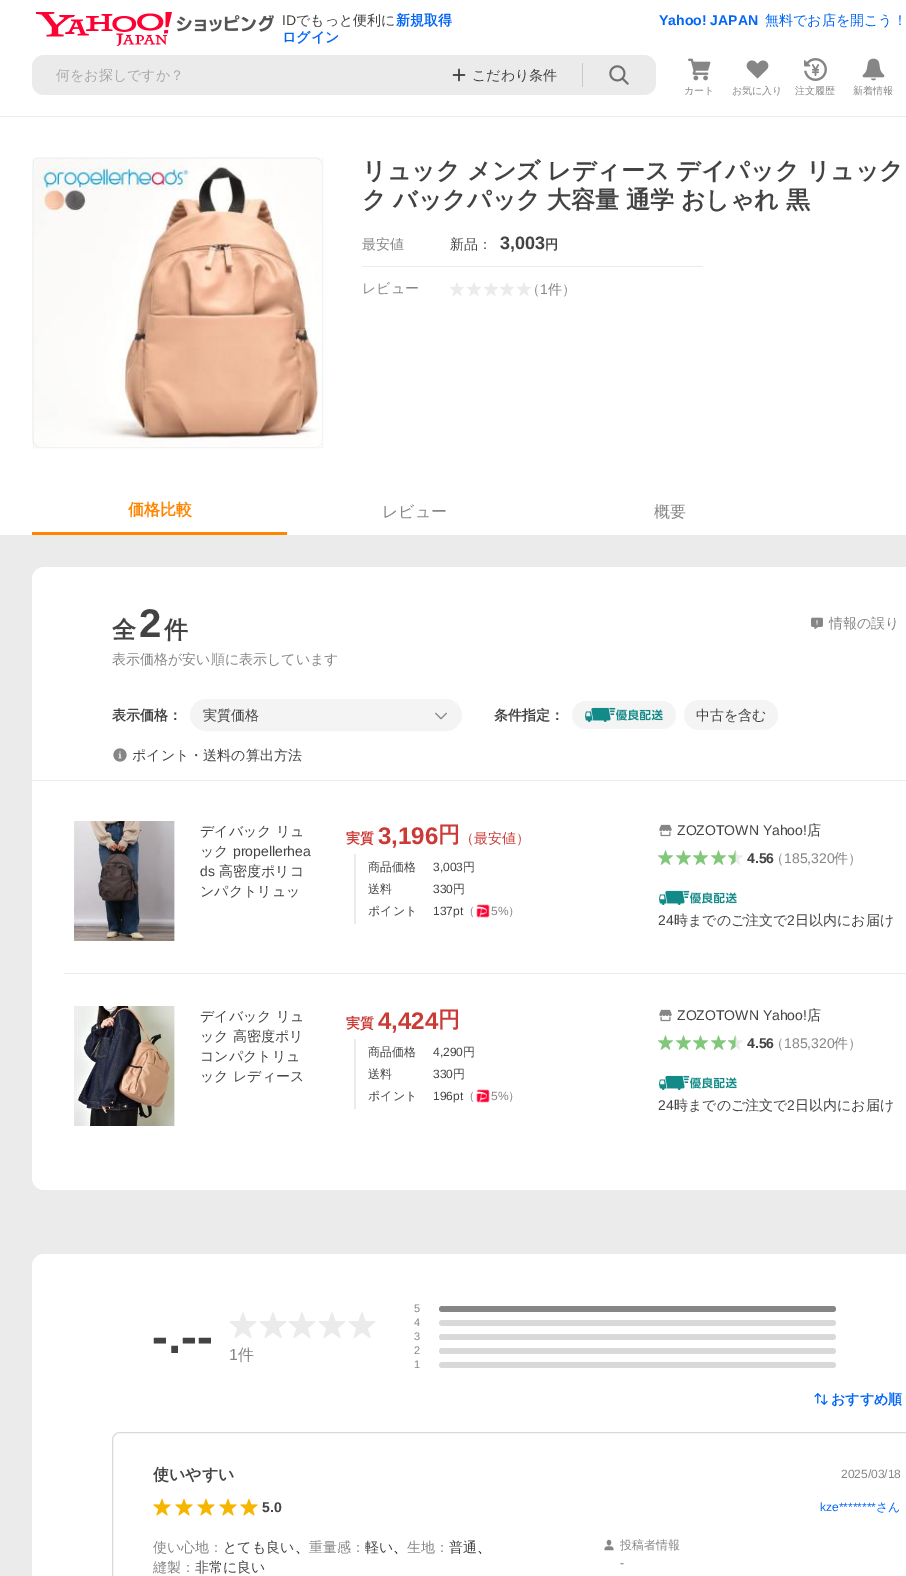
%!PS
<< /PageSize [906 1576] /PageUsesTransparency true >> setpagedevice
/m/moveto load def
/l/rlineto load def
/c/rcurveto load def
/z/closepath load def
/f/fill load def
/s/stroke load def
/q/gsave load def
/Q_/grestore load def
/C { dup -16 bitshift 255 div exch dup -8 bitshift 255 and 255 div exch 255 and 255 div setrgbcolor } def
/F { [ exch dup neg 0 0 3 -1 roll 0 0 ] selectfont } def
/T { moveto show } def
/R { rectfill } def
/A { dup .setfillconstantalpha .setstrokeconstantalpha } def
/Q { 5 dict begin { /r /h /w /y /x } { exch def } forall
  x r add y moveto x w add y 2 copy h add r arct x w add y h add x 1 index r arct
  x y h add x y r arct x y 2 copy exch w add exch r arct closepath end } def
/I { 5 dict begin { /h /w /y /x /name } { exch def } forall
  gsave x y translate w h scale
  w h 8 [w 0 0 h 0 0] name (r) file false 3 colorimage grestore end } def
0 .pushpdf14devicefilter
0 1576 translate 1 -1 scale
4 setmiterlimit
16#FFFFFF C
0 0 906 1576 R
(1.rgb) 36 12 238 34 I
/LiberationSans-Regular 14 F
16#434343 C
(ID) 282 25 T
/WenQuanYiZenHei-Medium 14 F
(でもっと便利に) 296 25 T
/WenQuanYiZenHei-Bold 14 F
16#0265F6 C
(新規取得) 396 25 T
(ログイン) 282 42 T
/LiberationSans-Bold 14 F
(Yahoo! JAPAN) 659 25 T
/WenQuanYiZenHei-Medium 14 F
(無料でお店を開こう！) 765 25 T
16#EBEBEB C
32 55 624 40 12 Q f
16#A9A9A9 C
(何をお探しですか？) 56 80 T
(2.rgb) 452 68 14 14 I
16#434343 C
(こだわり条件) 472 80 T
16#C8C8C8 C
582 63 1 24 R
(3.rgb) 609 65 20 20 I
(4.rgb) 688 58 23 23 I
/WenQuanYiZenHei-Medium 10 F
16#868686 C
(カート) 684 94 T
(5.rgb) 746 60 23 19 I
(お気に入り) 732 94 T
(6.rgb) 804 58 23 23 I
(注文履歴) 795 94 T
(7.rgb) 862 58 23 23 I
(新着情報) 853 94 T
16#EBEBEB C
0 535 906 1041 R
0 116 906 1 R
16#F5F5F5 C
32.5 157.5 289 289 7.5 Q s
0.04 A
16#000000 C
33.5 158.5 289 289 rectstroke
1 A
(8.rgb) 34 159 288 288 I
/WenQuanYiZenHei-Bold 24 F
16#434343 C
362 179 m -.5 0 32 (リュック メンズ レディース デイパック リュック) widthshow
362 208 m -.5 0 32 (ク バックパック 大容量 通学 おしゃれ 黒) widthshow
/WenQuanYiZenHei-Medium 14 F
16#868686 C
(最安値) 362 249 T
16#434343 C
(新品：) 450 249 T
/LiberationSans-Bold 18 F
(3,003) 500 249 T
/WenQuanYiZenHei-Bold 13 F
(円) 545 249 T
16#EBEBEB C
362 266 341 1 R
/WenQuanYiZenHei-Medium 14 F
16#868686 C
(レビュー) 362 293 T
(9.rgb) 450 282 14 14 I
(9.rgb) 467 282 14 14 I
(9.rgb) 484 282 14 14 I
(9.rgb) 500 282 14 14 I
(9.rgb) 517 282 14 14 I
(（) 526 294 T
/LiberationSans-Regular 14 F
(1) 540 294 T
/WenQuanYiZenHei-Medium 14 F
(件）) 548 294 T
16#FF8400 C
32 532 255 3 R
/WenQuanYiZenHei-Bold 16 F
(価格比較) 128 515 T
/WenQuanYiZenHei-Medium 16 F
16#868686 C
(レビュー) 382 517 T
(概要) 654 517 T
16#FFFFFF C
44 567 m 862 0 l 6.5 0 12 5.5 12 12 c 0 202 l -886 0 l 0 -202 l 0 -6.5 5.5 -12 12 -12 c z f
/WenQuanYiZenHei-Bold 24 F
16#434343 C
(全) 112 638 T
/LiberationSans-Bold 40 F
(2) 139 637 T
/WenQuanYiZenHei-Bold 24 F
(件) 164 638 T
(10.rgb) 811 617 12 12 I
/WenQuanYiZenHei-Medium 14 F
16#868686 C
(情報の誤り) 829 628 T
(表示価格が安い順に表示しています) 112 664 T
16#EBEBEB C
32 780 874 1 R
/WenQuanYiZenHei-Bold 14 F
16#434343 C
(表示価格：) 112 720 T
16#F4F4F4 C
190.5 699.5 271 31 15.5 Q q f Q_
s
/WenQuanYiZenHei-Medium 14 F
16#434343 C
(実質価格) 203 720 T
(11.rgb) 435 712 12 8 I
/WenQuanYiZenHei-Bold 14 F
(条件指定：) 494 720 T
16#F4F4F4 C
572 701 104 28 14 Q f
(12.rgb) 585 707 78 15 I
684 700 94 30 15 Q f
/WenQuanYiZenHei-Medium 14 F
16#434343 C
(中古を含む) 696 720 T
(13.rgb) 113 748 14 14 I
(ポイント・送料の算出方法) 132 760 T
16#FFFFFF C
32 781 m 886 0 l 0 397 l 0 6.5 -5.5 12 -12 12 c -862 0 l -6.5 0 -12 -5.5 -12 -12 c z f
(14.rgb) 73 821 103 120 I
16#434343 C
(デイバック リュ) 200 836 T
(ック) 200 856 T
/LiberationSans-Regular 14 F
(propellerhea) 233 856 T
(ds) 200 876 T
/WenQuanYiZenHei-Medium 14 F
(高密度ポリコ) 219 876 T
(ンパクトリュッ) 200 896 T
/WenQuanYiZenHei-Bold 14 F
16#CB3A34 C
(実質) 346 843 T
/LiberationSans-Bold 24 F
(3,196) 378 844 T
/WenQuanYiZenHei-Bold 22 F
(円) 438 842 T
/WenQuanYiZenHei-Medium 14 F
(（最安値）) 460 843 T
16#EBEBEB C
354 854 2 70 R
/WenQuanYiZenHei-Medium 12 F
16#434343 C
(商品価格) 368 871 T
/LiberationSans-Regular 12 F
(3,003) 433 871 T
/WenQuanYiZenHei-Medium 12 F
(円) 463 871 T
(送料) 368 893 T
/LiberationSans-Regular 12 F
(330) 433 893 T
/WenQuanYiZenHei-Medium 12 F
(円) 453 893 T
(ポイント) 368 915 T
/LiberationSans-Regular 12 F
(137pt) 433 915 T
/WenQuanYiZenHei-Medium 12 F
16#868686 C
(（) 463 915 T
(15.rgb) 476 904 14 14 I
/LiberationSans-Regular 12 F
(5%) 491 915 T
/WenQuanYiZenHei-Medium 12 F
(）) 508 915 T
(16.rgb) 659 824 13 13 I
/LiberationSans-Regular 14 F
16#434343 C
(ZOZOTOWN Yahoo!) 677 835 T
/WenQuanYiZenHei-Medium 14 F
(店) 807 835 T
(17.rgb) 658 850 15 15 I
(17.rgb) 676 850 15 15 I
(17.rgb) 693 850 15 15 I
(17.rgb) 711 850 15 15 I
(18.rgb) 728 850 15 15 I
(19.rgb) 728 850 8 15 I
/LiberationSans-Bold 14 F
(4.56) 747 863 T
/WenQuanYiZenHei-Medium 14 F
16#868686 C
(（) 770 863 T
/LiberationSans-Regular 14 F
(185,320) 784 863 T
/WenQuanYiZenHei-Medium 14 F
(件）) 834 863 T
(20.rgb) 659 890 78 15 I
/LiberationSans-Regular 14 F
16#434343 C
(24) 658 925 T
/WenQuanYiZenHei-Medium 14 F
(時までのご注文で) 674 925 T
/LiberationSans-Regular 14 F
(2) 787 925 T
/WenQuanYiZenHei-Medium 14 F
(日以内にお届け) 795 925 T
16#EBEBEB C
64 973 842 1 R
(21.rgb) 74 1006 102 120 I
16#434343 C
(デイバック リュ) 200 1021 T
(ック 高密度ポリ) 200 1041 T
(コンパクトリュ) 200 1061 T
(ック レディース) 200 1081 T
/WenQuanYiZenHei-Bold 14 F
16#CB3A34 C
(実質) 346 1028 T
/LiberationSans-Bold 24 F
(4,424) 378 1029 T
/WenQuanYiZenHei-Bold 22 F
(円) 438 1027 T
16#EBEBEB C
354 1039 2 70 R
/WenQuanYiZenHei-Medium 12 F
16#434343 C
(商品価格) 368 1056 T
/LiberationSans-Regular 12 F
(4,290) 433 1056 T
/WenQuanYiZenHei-Medium 12 F
(円) 463 1056 T
(送料) 368 1078 T
/LiberationSans-Regular 12 F
(330) 433 1078 T
/WenQuanYiZenHei-Medium 12 F
(円) 453 1078 T
(ポイント) 368 1100 T
/LiberationSans-Regular 12 F
(196pt) 433 1100 T
/WenQuanYiZenHei-Medium 12 F
16#868686 C
(（) 463 1100 T
(15.rgb) 476 1089 14 14 I
/LiberationSans-Regular 12 F
(5%) 491 1100 T
/WenQuanYiZenHei-Medium 12 F
(）) 508 1100 T
(16.rgb) 659 1009 13 13 I
/LiberationSans-Regular 14 F
16#434343 C
(ZOZOTOWN Yahoo!) 677 1020 T
/WenQuanYiZenHei-Medium 14 F
(店) 807 1020 T
(17.rgb) 658 1035 15 15 I
(17.rgb) 676 1035 15 15 I
(17.rgb) 693 1035 15 15 I
(17.rgb) 711 1035 15 15 I
(18.rgb) 728 1035 15 15 I
(19.rgb) 728 1035 8 15 I
/LiberationSans-Bold 14 F
(4.56) 747 1048 T
/WenQuanYiZenHei-Medium 14 F
16#868686 C
(（) 770 1048 T
/LiberationSans-Regular 14 F
(185,320) 784 1048 T
/WenQuanYiZenHei-Medium 14 F
(件）) 834 1048 T
(20.rgb) 659 1075 78 15 I
/LiberationSans-Regular 14 F
16#434343 C
(24) 658 1110 T
/WenQuanYiZenHei-Medium 14 F
(時までのご注文で) 674 1110 T
/LiberationSans-Regular 14 F
(2) 787 1110 T
/WenQuanYiZenHei-Medium 14 F
(日以内にお届け) 795 1110 T
16#FFFFFF C
44 1254 m 862 0 l 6.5 0 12 5.5 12 12 c 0 106 l -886 0 l 0 -106 l 0 -6.5 5.5 -12 12 -12 c z f
/LiberationSans-Bold 48 F
16#434343 C
(-.--) 152 1353 T
(22.rgb) 229 1312 28 26 I
(22.rgb) 259 1312 28 26 I
(22.rgb) 288 1312 28 26 I
(22.rgb) 318 1312 28 26 I
(22.rgb) 348 1312 28 26 I
/LiberationSans-Regular 16 F
16#868686 C
(1) 229 1360 T
/WenQuanYiZenHei-Medium 16 F
(件) 238 1360 T
/LiberationSans-Regular 11 F
(5) 414 1312 T
439 1306 397 6 3 Q f
(4) 414 1326 T
16#D9D9D9 C
439 1320 397 6 3 Q f
16#868686 C
(3) 414 1340 T
16#D9D9D9 C
439 1334 397 6 3 Q f
16#868686 C
(2) 414 1354 T
16#D9D9D9 C
439 1348 397 6 3 Q f
16#868686 C
(1) 414 1368 T
16#D9D9D9 C
439 1362 397 6 3 Q f
16#FFFFFF C
32 1372 874 204 R
(23.rgb) 814 1393 14 12 I
/WenQuanYiZenHei-Bold 14 F
16#0265F6 C
(おすすめ順) 831 1404 T
16#D9D9D9 C
112.5 1432.5 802 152 7.5 Q s
/WenQuanYiZenHei-Bold 16 F
16#434343 C
(使いやすい) 153 1480 T
/LiberationSans-Regular 12 F
16#868686 C
(2025/03/18) 841 1478 T
(24.rgb) 153 1498 18 18 I
(24.rgb) 175 1498 18 18 I
(24.rgb) 197 1498 18 18 I
(24.rgb) 219 1498 18 18 I
(24.rgb) 240 1498 18 18 I
/LiberationSans-Bold 14 F
16#434343 C
(5.0) 262 1512 T
/LiberationSans-Regular 12 F
16#0265F6 C
(kze********) 820 1511 T
/WenQuanYiZenHei-Medium 12 F
(さん) 876 1511 T
/WenQuanYiZenHei-Medium 14 F
16#868686 C
(使い心地：) 153 1552 T
16#434343 C
(とても良い) 223 1552 T
16#000000 C
(、) 295 1552 T
16#868686 C
(重量感：) 309 1552 T
16#434343 C
(軽い) 365 1552 T
16#000000 C
(、) 393 1552 T
16#868686 C
(生地：) 407 1552 T
16#434343 C
(普通) 449 1552 T
16#000000 C
(、) 477 1552 T
16#868686 C
(縫製：) 153 1572 T
16#434343 C
(非常に良い) 195 1572 T
(25.rgb) 604 1539 10 12 I
/WenQuanYiZenHei-Medium 12 F
16#868686 C
(投稿者情報) 620 1549 T
/LiberationSans-Regular 12 F
16#6F6F6F C
(-) 620 1567 T
.poppdf14devicefilter showpage
